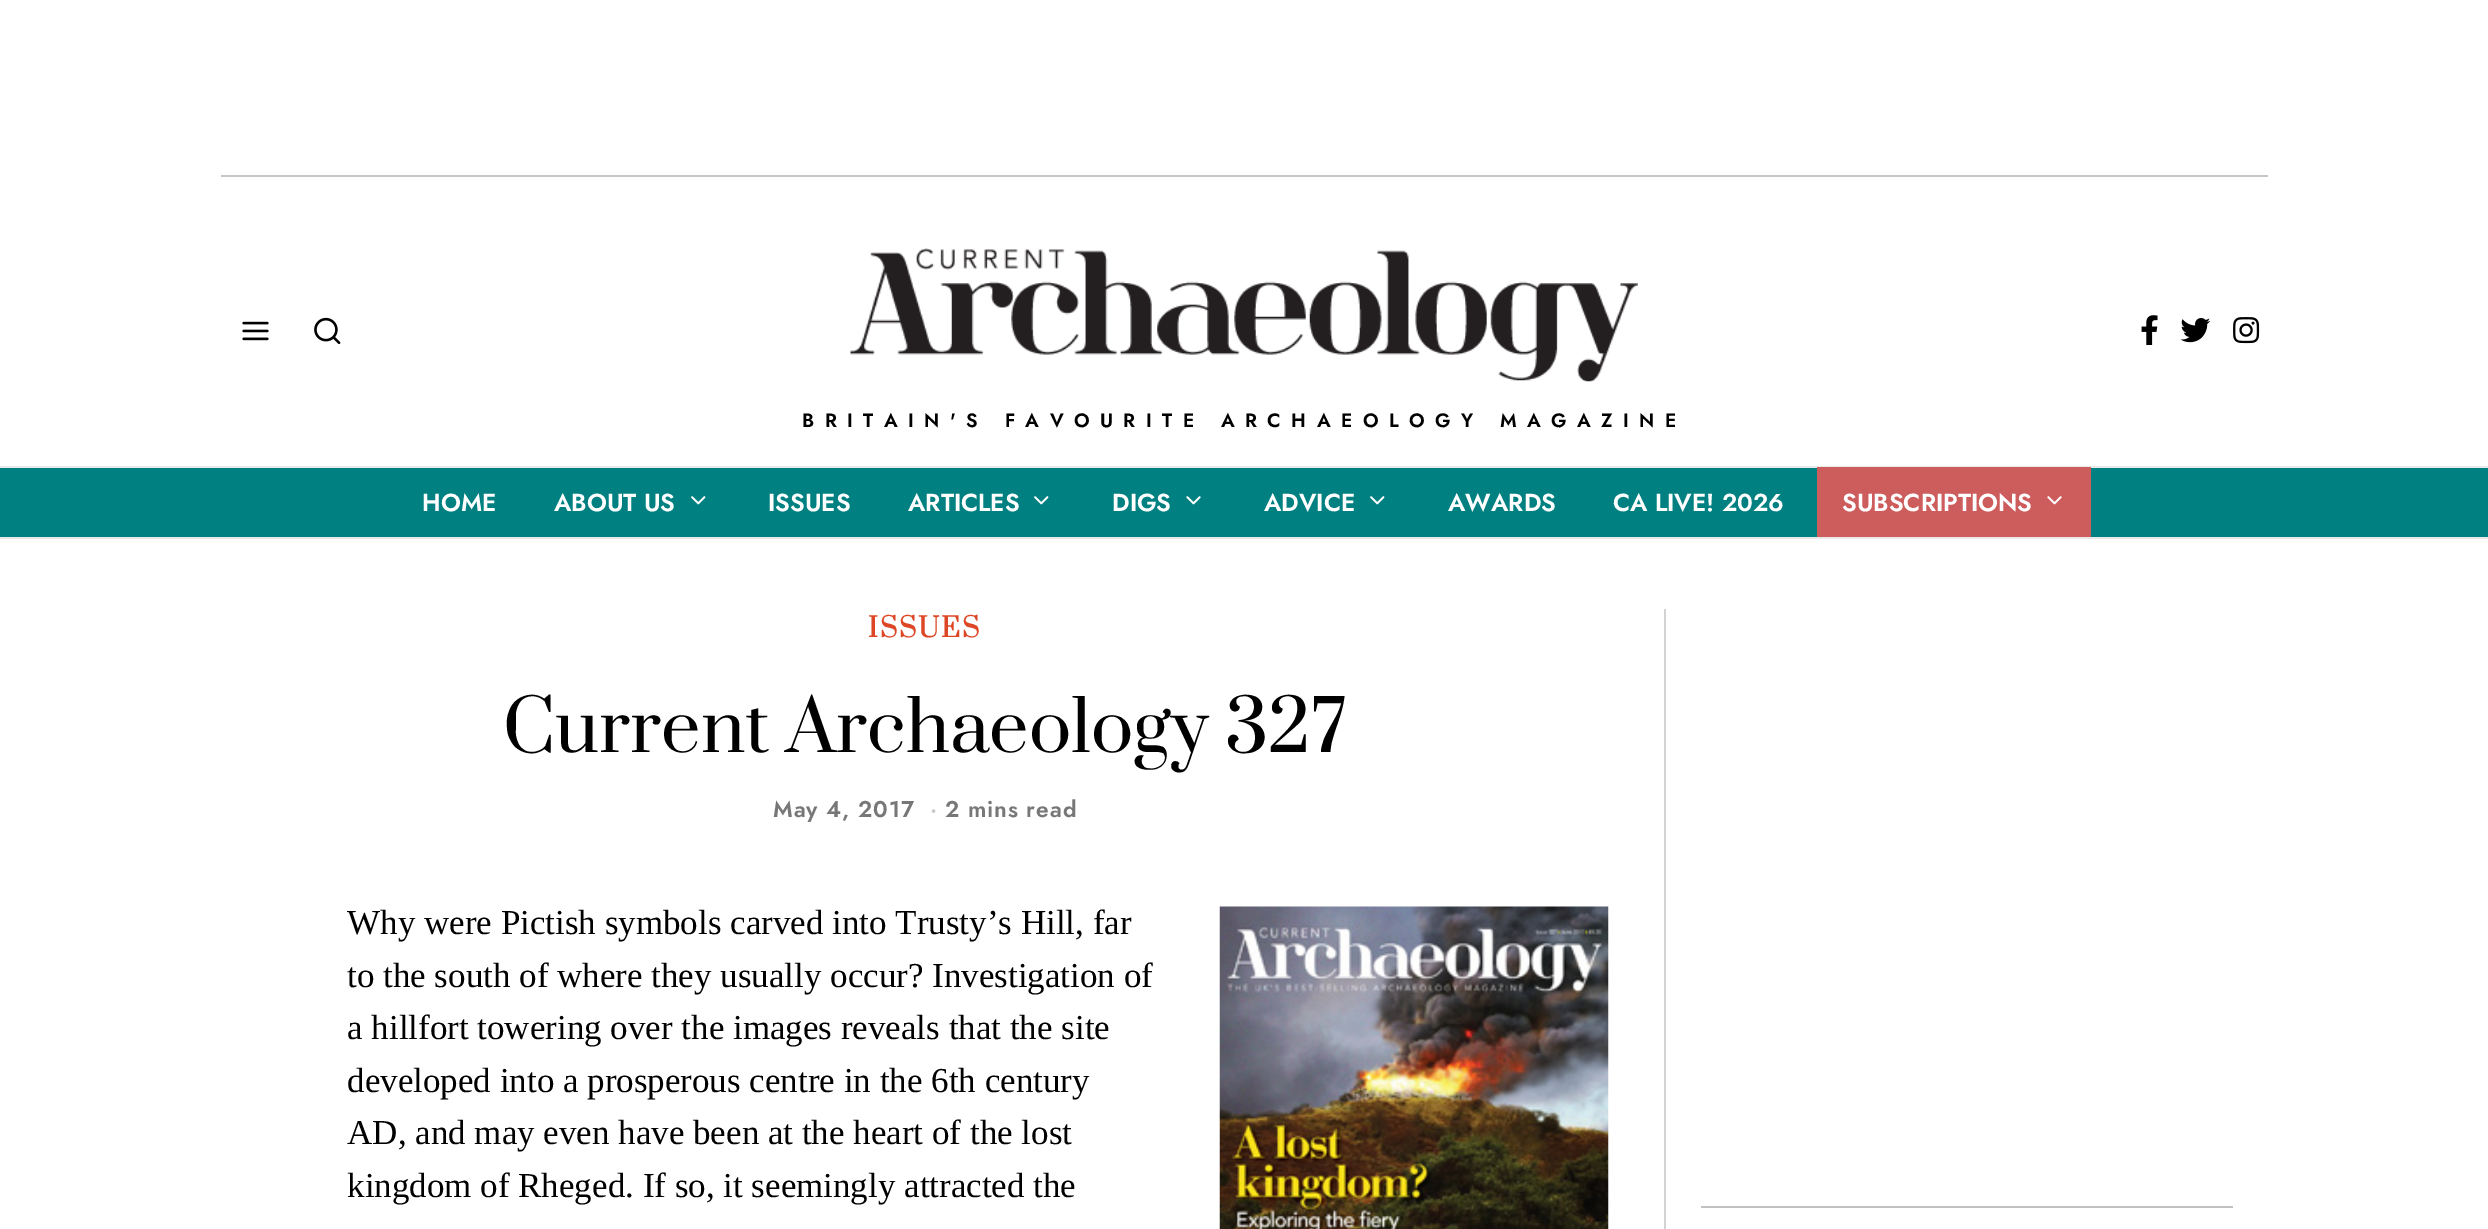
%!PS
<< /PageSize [2488 1229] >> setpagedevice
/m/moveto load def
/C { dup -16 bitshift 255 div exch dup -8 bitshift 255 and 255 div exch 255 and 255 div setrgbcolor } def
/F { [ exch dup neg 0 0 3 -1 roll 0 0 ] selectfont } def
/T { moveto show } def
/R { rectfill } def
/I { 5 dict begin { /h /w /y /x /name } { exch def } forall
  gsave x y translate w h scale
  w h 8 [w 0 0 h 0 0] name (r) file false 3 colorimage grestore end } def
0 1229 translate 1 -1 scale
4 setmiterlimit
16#FFFFFF C
0 0 2488 1229 R
16#C6C6C6 C
221 175 2047 2 R
(1.rgb) 242 321 27 20 I
(2.rgb) 314 317 27 28 I
(3.rgb) 2141 315 17 30 I
(4.rgb) 2180 318 30 25 I
(5.rgb) 2233 317 27 27 I
(6.rgb) 850 248 788 134 I
/Jost-SemiBold 19.25 F
16#000000 C
802 427 m 10.5 0 (BRITAIN'S FAVOURITE ARCHAEOLOGY MAGAZINE) ashow
16#008080 C
0 468 2488 69 R
16#E9E9E9 C
0 466 2488 2 R
0 537 2488 2 R
/Jost-SemiBold 24.5 F
16#FFFFFF C
(HOME) 422 511 T
(ABOUT US) 554 511 T
(7.rgb) 691 496 15 9 I
(ISSUES) 768 511 T
(ARTICLES) 908 511 T
(7.rgb) 1034 496 15 9 I
(DIGS) 1112 511 T
(8.rgb) 1186 496 15 9 I
(ADVICE) 1264 511 T
(7.rgb) 1370 496 15 9 I
(AWARDS) 1448 511 T
(CA LIVE! 2026) 1613 511 T
16#CD5C5C C
1817 467 274 70 R
16#FFFFFF C
(SUBSCRIPTIONS) 1842 511 T
(9.rgb) 2047 496 15 9 I
/Prata-Bold 26.25 F
16#DD4725 C
868 637 m 1.75 0 (ISSUES) ashow
/Prata-Regular 70 F
16#000000 C
(Current Archaeology 327) 503 752 T
/Jost-SemiBold 22.75 F
16#777777 C
773 817 m .9 0 (May 4, 2017) ashow
16#C9C9C9 C
930 817 m .9 0 (·) ashow
16#777777 C
945 817 m .9 0 (2 mins read) ashow
/LiberationSerif-Regular 35 F
16#000000 C
(Why were Pictish symbols carved into Trusty’s Hill, far) 347 934 T
(10.rgb) 1219 906 390 323 I
(to the south of where they usually occur? Investigation of) 347 987 T
(a hillfort towering over the images reveals that the site) 347 1039 T
(developed into a prosperous centre in the 6th century) 347 1092 T
(AD, and may even have been at the heart of the lost) 347 1144 T
(kingdom of Rheged. If so, it seemingly attracted the) 347 1197 T
16#D3D3D3 C
1664 609 2 620 R
16#C0C1C0 C
1701 1206 532 2 R
showpage
